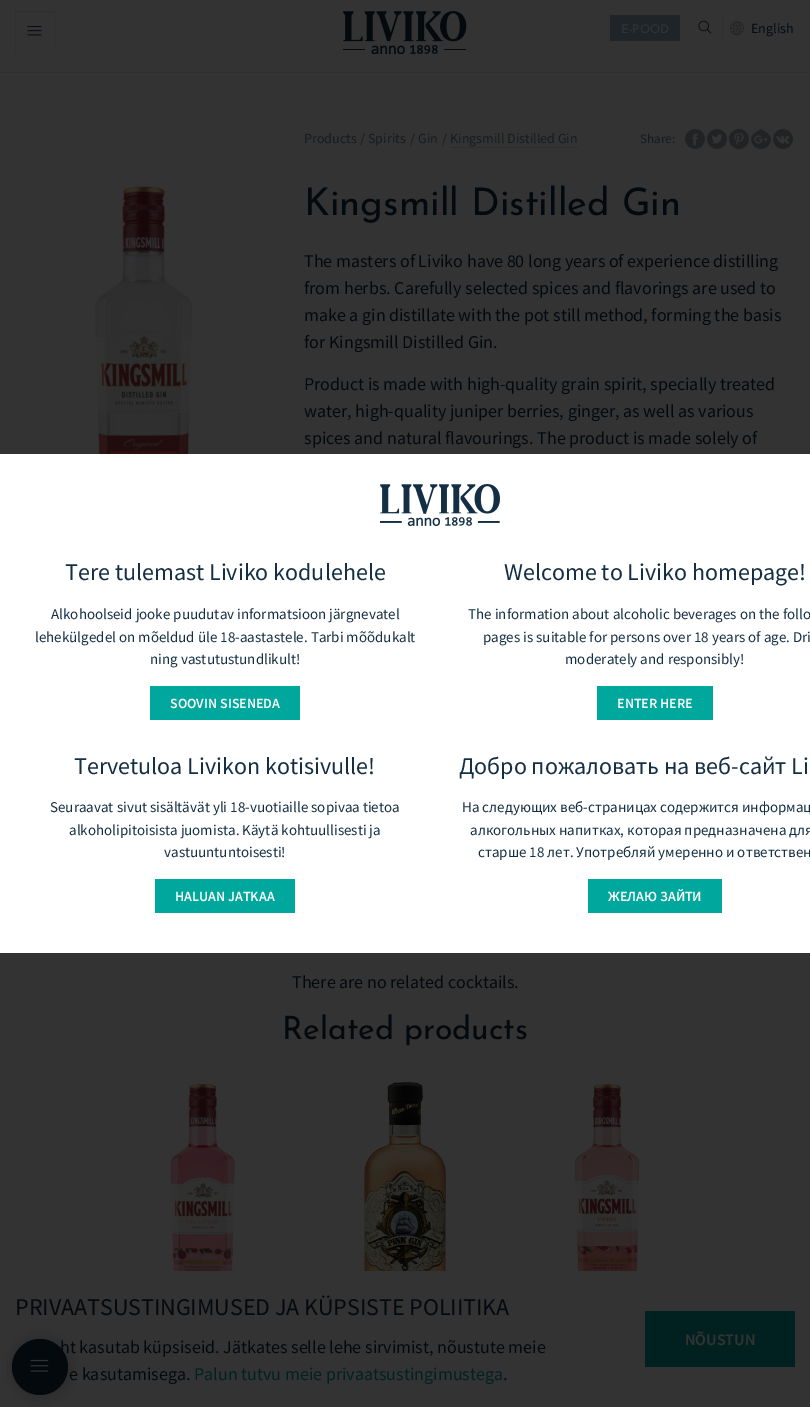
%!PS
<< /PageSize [810 1407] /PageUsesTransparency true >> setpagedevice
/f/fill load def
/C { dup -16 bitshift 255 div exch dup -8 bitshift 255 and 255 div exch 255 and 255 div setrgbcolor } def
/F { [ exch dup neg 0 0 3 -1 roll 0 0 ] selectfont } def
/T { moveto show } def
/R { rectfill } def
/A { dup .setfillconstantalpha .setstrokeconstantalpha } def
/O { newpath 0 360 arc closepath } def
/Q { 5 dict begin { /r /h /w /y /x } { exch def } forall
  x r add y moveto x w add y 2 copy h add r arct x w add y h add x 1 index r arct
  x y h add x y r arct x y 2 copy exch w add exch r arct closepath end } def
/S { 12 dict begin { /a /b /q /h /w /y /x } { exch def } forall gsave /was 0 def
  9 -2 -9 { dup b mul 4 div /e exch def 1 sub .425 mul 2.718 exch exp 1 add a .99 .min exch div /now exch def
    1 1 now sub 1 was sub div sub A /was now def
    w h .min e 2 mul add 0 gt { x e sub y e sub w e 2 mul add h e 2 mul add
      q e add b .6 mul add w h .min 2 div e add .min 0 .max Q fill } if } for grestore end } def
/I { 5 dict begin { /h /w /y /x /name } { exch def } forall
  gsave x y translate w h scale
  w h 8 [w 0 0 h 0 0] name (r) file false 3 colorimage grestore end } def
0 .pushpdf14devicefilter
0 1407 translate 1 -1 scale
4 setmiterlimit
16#333333 C
0 0 810 1407 R
16#2F2F2F C
0 72 810 1 R
15 11 40 1 R
54 11 1 40 R
15 11 1 40 R
(1.rgb) 27 26 15 10 I
(2.rgb) 343 11 124 43 I
16#1E2428 C
610 15 70 26 R
/JosefinSans-Regular 12 F
16#333333 C
(E-POOD) 621 33 T
(3.rgb) 698 20 14 14 I
16#2F2F2F C
722 17 1 21 R
(4.rgb) 730 21 14 15 I
/SourceSansPro-Regular 14 F
16#04090E C
(English) 751 33 T
(5.rgb) 95 186 97 268 I
/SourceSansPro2-Regular 14 F
16#171A1D C
(Products) 304 143 T
/SourceSansPro-Regular 14 F
(/) 360 143 T
/SourceSansPro2-Regular 14 F
(Spirits) 368 143 T
/SourceSansPro-Regular 14 F
(/) 410 143 T
/SourceSansPro2-Regular 14 F
(Gin) 418 143 T
/SourceSansPro-Regular 14 F
(/) 442 143 T
(Kingsmill Distilled Gin) 450 143 T
16#2D2D2D C
450 147 128 1 R
/SourceSansPro-Regular 13 F
16#171A1D C
(Share:) 640 143 T
(6.rgb) 685 129 20 20 I
(7.rgb) 707 129 20 20 I
(8.rgb) 729 129 20 20 I
(9.rgb) 751 129 20 20 I
(10.rgb) 773 129 20 20 I
/JosefinSans-Regular 38 F
16#04090E C
(Kingsmill Distilled Gin) 304 215 T
/SourceSansPro-Regular 18 F
(The masters of Liviko have 80 long years of experience distilling) 304 267 T
(from herbs. Carefully selected spices and flavorings are used to) 304 294 T
(make a gin distillate with the pot still method, forming the basis) 304 321 T
(for Kingsmill Distilled Gin.) 304 348 T
(Product is made with high-quality grain spirit, specially treated) 304 390 T
(water, high-quality juniper berries, ginger, as well as various) 304 417 T
(spices and natural flavourings. The product is made solely of) 304 444 T
(There are no related cocktails.) 292 988 T
/JosefinSans-Regular 32 F
(Related products) 282 1039 T
(11.rgb) 170 1084 65 187 I
(12.rgb) 364 1082 82 189 I
(13.rgb) 574 1084 66 187 I
16#FFFFFF C
0 454 810 499 R
(14.rgb) 380 484 120 42 I
/SourceSansPro2-Regular 24 F
16#142F44 C
(Tere tulemast Liviko kodulehele) 65 580 T
/SourceSansPro-Regular 15 F
(Alkohoolseid jooke puudutav informatsioon järgnevatel) 51 619 T
(lehekülgedel on mõeldud üle 18-aastastele. Tarbi mõõdukalt) 35 642 T
(ning vastutustundlikult!) 150 664 T
16#00A79C C
150 686 150 34 R
/SourceSansPro-SemiBold 14 F
16#FFFFFF C
(SOOVIN SISENEDA) 170 708 T
/SourceSansPro2-Regular 24 F
16#142F44 C
(Welcome to Liviko homepage!) 504 580 T
/SourceSansPro-Regular 15 F
(The information about alcoholic beverages on the follo) 468 619 T
(pages is suitable for persons over 18 years of age. Dri) 483 642 T
(moderately and responsibly!) 565 664 T
16#00A79C C
597 686 116 34 R
/SourceSansPro-SemiBold 14 F
16#FFFFFF C
(ENTER HERE) 617 708 T
/SourceSansPro2-Regular 24 F
16#142F44 C
(Tervetuloa Livikon kotisivulle!) 74 774 T
/SourceSansPro-Regular 15 F
(Seuraavat sivut sisältävät yli 18-vuotiaille sopivaa tietoa) 50 812 T
(alkoholipitoisista juomista. Käytä kohtuullisesti ja) 69 835 T
(vastuuntuntoisesti!) 164 857 T
16#00A79C C
155 879 140 34 R
/SourceSansPro-SemiBold 14 F
16#FFFFFF C
(HALUAN JATKAA) 175 901 T
/SourceSansPro2-Regular 24 F
16#142F44 C
(Добро пожаловать на веб-сайт Li) 459 774 T
/SourceSansPro-Regular 15 F
(На следующих веб-страницах содержится информац) 462 812 T
(алкогольных напитках, которая предназначенa для) 470 835 T
(старше 18 лет. Употребляй умеренно и ответствен) 478 857 T
16#00A79C C
588 879 134 34 R
/SourceSansPro-SemiBold 14 F
16#FFFFFF C
(ЖЕЛАЮ ЗАЙТИ) 608 901 T
/SourceSansPro2-Regular 24 F
16#04090E C
(PRIVAATSUSTINGIMUSED JA KÜPSISTE POLIITIKA) 15 1315 T
/SourceSansPro-Regular 18 F
(ht kasutab küpsiseid. Jätkates selle lehe sirvimist, nõustute meie) 60 1353 T
(e kasutamisega.) 69 1380 T
/SourceSansPro2-Regular 18 F
16#00211F C
(Palun tutvu meie privaatsustingimustega) 194 1380 T
/SourceSansPro-Regular 18 F
16#04090E C
(.) 503 1380 T
16#00211F C
645 1311 150 56 R
/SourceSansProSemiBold-SemiBold 16 F
16#333333 C
(NÕUSTUN) 685 1345 T
16#000000 C
13 1340 56 56 28 9.5 .2 S
16#04090E C
40 1367 28 O f
(15.rgb) 30 1359 19 13 I
.poppdf14devicefilter showpage
